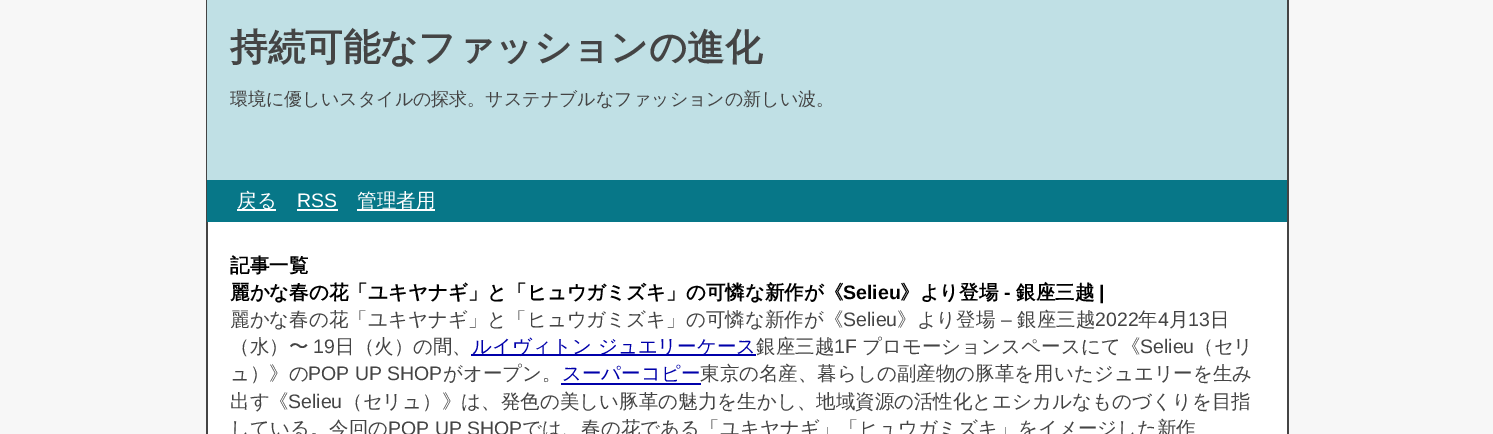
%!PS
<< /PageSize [1493 434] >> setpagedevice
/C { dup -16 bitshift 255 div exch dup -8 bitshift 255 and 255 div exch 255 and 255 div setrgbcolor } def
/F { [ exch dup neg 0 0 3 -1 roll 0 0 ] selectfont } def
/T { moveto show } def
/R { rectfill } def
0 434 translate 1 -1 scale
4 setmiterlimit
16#F7F7F7 C
0 0 1493 434 R
16#FFFFFF C
208 222 1079 212 R
16#444444 C
1287 0 2 434 R
206 0 2 434 R
16#C0E0E5 C
207 0 1080 180 R
/WenQuanYiZenHei-Bold 37.5 F
16#444444 C
(持続可能なファッションの進化) 230 60 T
/WenQuanYiZenHei-Medium 18 F
(環境に優しいスタイルの探求。サステナブルなファッションの新しい波。) 230 105 T
16#077788 C
207 180 1080 42 R
16#FFFFFF C
237 209 39 2 R
/WenQuanYiZenHei-Medium 19.5 F
(戻る) 237 207 T
/LiberationSans-Regular 19.5 F
(RSS) 297 207 T
297 209 41 2 R
357 209 78 2 R
/WenQuanYiZenHei-Medium 19.5 F
(管理者用) 357 207 T
/WenQuanYiZenHei-Bold 19.5 F
16#000000 C
(記事一覧) 230 272 T
(麗かな春の花「ユキヤナギ」と「ヒュウガミズキ」の可憐な新作が《) 230 299 T
/LiberationSans-Bold 19.5 F
(Selieu) 843 299 T
/WenQuanYiZenHei-Bold 19.5 F
(》より登場) 900 299 T
/LiberationSans-Bold 19.5 F
(-) 1004 299 T
/WenQuanYiZenHei-Bold 19.5 F
(銀座三越) 1016 299 T
/LiberationSans-Bold 19.5 F
(|) 1099 299 T
/WenQuanYiZenHei-Medium 19.5 F
16#444444 C
(麗かな春の花「ユキヤナギ」と「ヒュウガミズキ」の可憐な新作が《) 230 326 T
/LiberationSans-Regular 19.5 F
(Selieu) 843 326 T
/WenQuanYiZenHei-Medium 19.5 F
(》より登場) 897 326 T
/LiberationSans-Regular 19.5 F
(–) 1001 326 T
/WenQuanYiZenHei-Medium 19.5 F
(銀座三越) 1017 326 T
/LiberationSans-Regular 19.5 F
(2022) 1095 326 T
/WenQuanYiZenHei-Medium 19.5 F
(年) 1138 326 T
/LiberationSans-Regular 19.5 F
(4) 1158 326 T
/WenQuanYiZenHei-Medium 19.5 F
(月) 1169 326 T
/LiberationSans-Regular 19.5 F
(13) 1188 326 T
/WenQuanYiZenHei-Medium 19.5 F
(日) 1210 326 T
(（水）〜) 230 353 T
/LiberationSans-Regular 19.5 F
(19) 313 353 T
/WenQuanYiZenHei-Medium 19.5 F
(日（火）の間、) 335 353 T
16#0000AA C
471 354 285 2 R
(ルイヴィトン ジュエリーケース) 472 353 T
16#444444 C
(銀座三越) 756 353 T
/LiberationSans-Regular 19.5 F
(1F) 834 353 T
/WenQuanYiZenHei-Medium 19.5 F
(プロモーションスペースにて《) 862 353 T
/LiberationSans-Regular 19.5 F
(Selieu) 1140 353 T
/WenQuanYiZenHei-Medium 19.5 F
(（セリ) 1194 353 T
(ュ）》の) 230 380 T
/LiberationSans-Regular 19.5 F
(POP UP SHOP) 308 380 T
/WenQuanYiZenHei-Medium 19.5 F
(がオープン。) 443 380 T
16#0000AA C
(スーパーコピー) 562 380 T
561 383 140 2 R
16#444444 C
(東京の名産、暮らしの副産物の豚革を用いたジュエリーを生み) 700 380 T
(出す《) 230 408 T
/LiberationSans-Regular 19.5 F
(Selieu) 288 408 T
/WenQuanYiZenHei-Medium 19.5 F
(（セリュ）》は、発色の美しい豚革の魅力を生かし、地域資源の活性化とエシカルなものづくりを目指) 343 408 T
(している。今回の) 230 435 T
/LiberationSans-Regular 19.5 F
(POP UP SHOP) 388 435 T
/WenQuanYiZenHei-Medium 19.5 F
(では、春の花である「ユキヤナギ」「ヒュウガミズキ」をイメージした新作) 522 435 T
showpage
